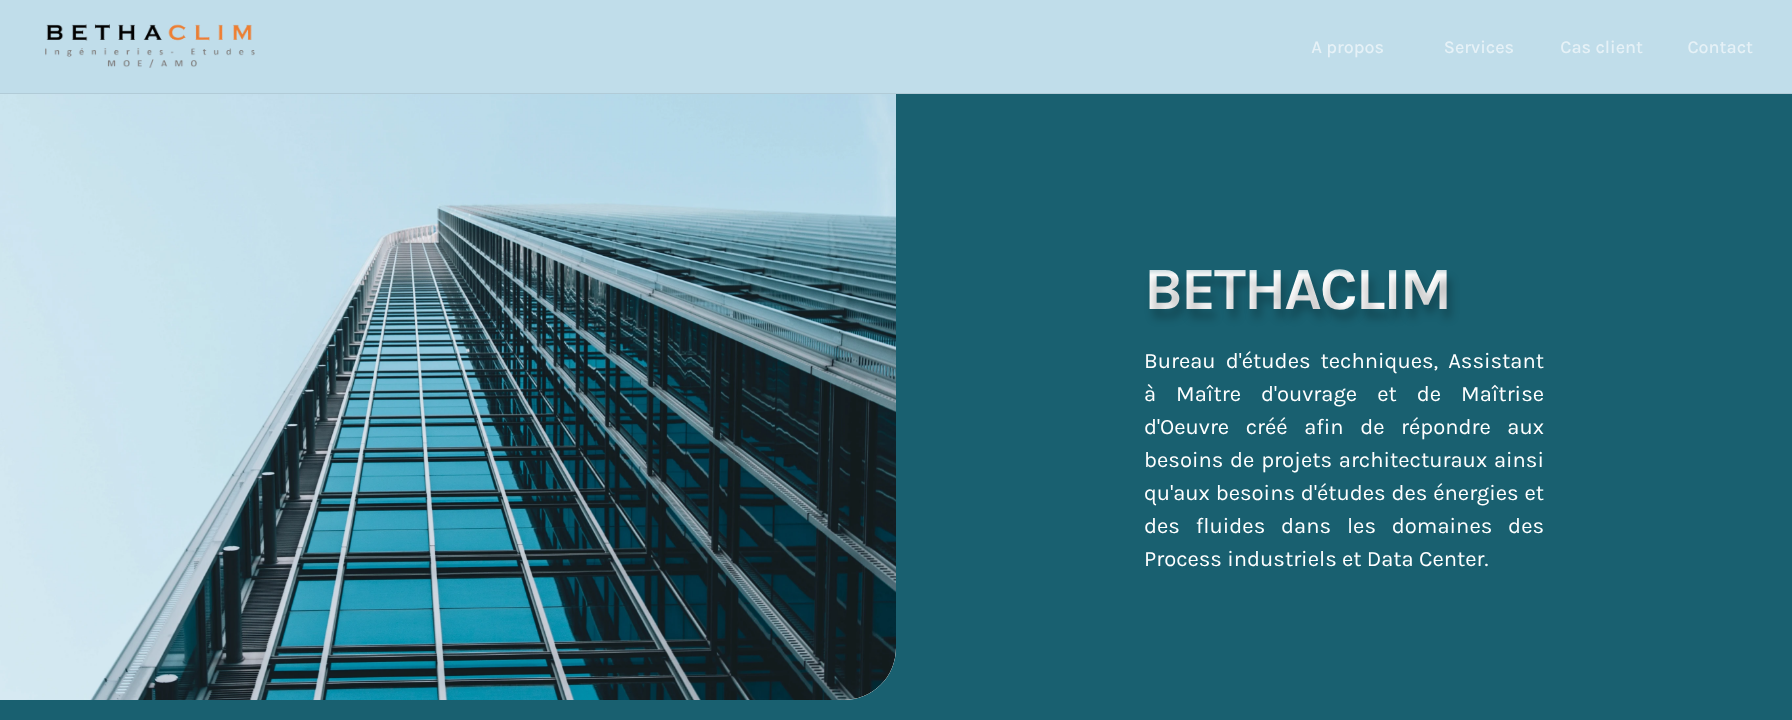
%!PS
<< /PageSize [1792 720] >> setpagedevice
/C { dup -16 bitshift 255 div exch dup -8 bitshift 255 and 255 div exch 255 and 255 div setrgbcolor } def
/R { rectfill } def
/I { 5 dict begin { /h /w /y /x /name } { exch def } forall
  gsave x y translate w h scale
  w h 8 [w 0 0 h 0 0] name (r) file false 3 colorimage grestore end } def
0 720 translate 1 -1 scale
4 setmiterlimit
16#FFFFFF C
0 0 1792 720 R
(1.rgb) 0 0 1792 720 I
showpage
